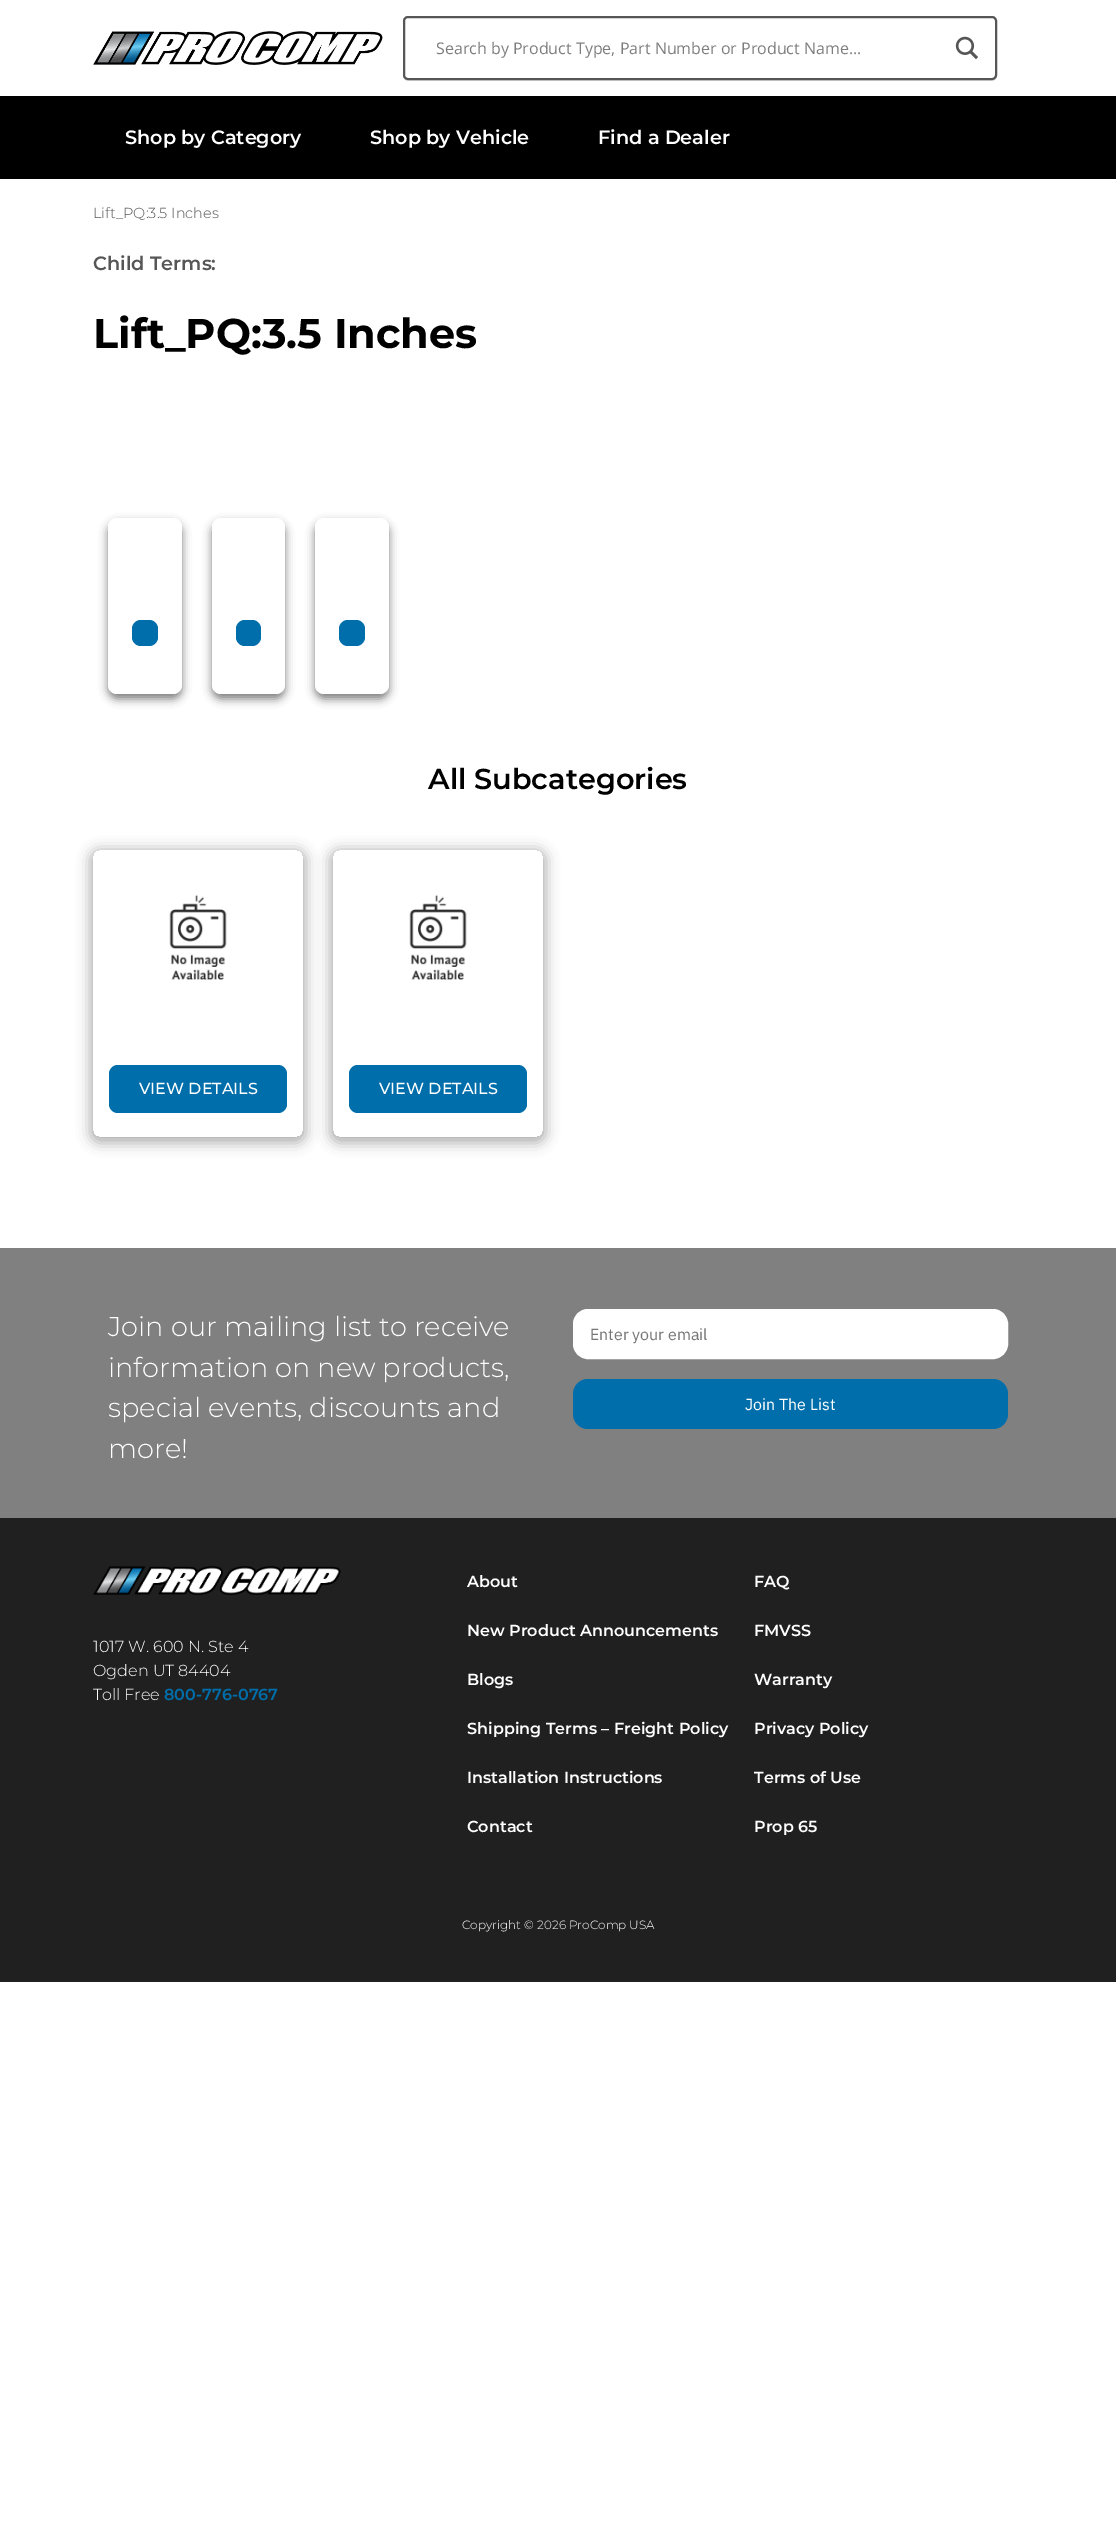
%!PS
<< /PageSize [1116 2543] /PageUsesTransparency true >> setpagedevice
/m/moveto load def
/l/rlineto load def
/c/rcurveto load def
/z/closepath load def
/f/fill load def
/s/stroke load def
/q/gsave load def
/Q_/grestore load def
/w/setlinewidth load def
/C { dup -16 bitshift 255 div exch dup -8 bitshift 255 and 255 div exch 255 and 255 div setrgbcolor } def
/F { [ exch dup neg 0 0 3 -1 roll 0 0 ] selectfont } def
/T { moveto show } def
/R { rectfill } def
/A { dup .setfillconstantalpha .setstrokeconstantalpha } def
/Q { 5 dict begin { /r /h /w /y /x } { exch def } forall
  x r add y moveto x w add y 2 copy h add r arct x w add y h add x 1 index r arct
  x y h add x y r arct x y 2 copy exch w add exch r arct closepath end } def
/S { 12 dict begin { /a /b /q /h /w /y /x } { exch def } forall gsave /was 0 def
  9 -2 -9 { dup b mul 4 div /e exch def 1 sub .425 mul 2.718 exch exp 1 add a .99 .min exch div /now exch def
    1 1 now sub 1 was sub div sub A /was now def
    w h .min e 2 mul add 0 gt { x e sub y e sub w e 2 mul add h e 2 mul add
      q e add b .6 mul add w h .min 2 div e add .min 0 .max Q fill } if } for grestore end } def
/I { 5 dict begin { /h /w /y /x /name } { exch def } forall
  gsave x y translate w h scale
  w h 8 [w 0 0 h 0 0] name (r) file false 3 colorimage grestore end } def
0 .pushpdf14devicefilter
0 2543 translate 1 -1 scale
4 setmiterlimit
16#FFFFFF C
0 0 1116 2543 R
(1.rgb) 93 31 290 34 I
16#E4E4E4 C
403 75 m 0 1 l 0 3 2 5 5 5 c 584 0 l 3 0 5 -2 5 -5 c 0 -1 l 0 3 -2 5 -5 5 c -584 0 l -3 0 -5 -2 -5 -5 c z f
16#FFFFFF C
404 17 592 62 4 Q q f Q_
16#565656 C
2 w
s
/OpenSans-Regular 16 F
16#7D7D7D C
(Search by Product Type, Part Number or Product Name...) 436 54 T
(2.rgb) 955 36 23 24 I
16#000000 C
0 96 1116 83 R
/Montserrat-SemiBold 19.25 F
16#FFFFFF C
(Shop by Category) 125 144 T
(Shop by Vehicle) 370 144 T
(Find a Dealer) 598 144 T
/Montserrat-Light 14.5 F
16#565656 C
(Lift_PQ:3.5 Inches) 93 218 T
/Montserrat-SemiBold 19.25 F
(Child Terms:) 93 270 T
/Montserrat-Bold 41.5 F
16#000000 C
(Lift_PQ:3.5 Inches) 93 348 T
108 523 74 176 9 4.5 .51 S
16#FFFFFF C
108 518 74 176 9 Q f
16#006EAA C
132 620 26 26 9 Q f
16#000000 C
212 523 73 176 9 4.5 .51 S
16#FFFFFF C
212 518 73 176 9 Q f
16#006EAA C
236 620 25 26 9 Q f
16#000000 C
315 523 74 176 9 4.5 .51 S
16#FFFFFF C
315 518 74 176 9 Q f
16#006EAA C
339 620 26 26 9 Q f
/Montserrat-SemiBold 28.75 F
16#000000 C
(All Subcategories) 428 789 T
q
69 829 m 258 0 l 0 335 l -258 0 l z 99 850 m 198 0 l 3.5 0 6 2.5 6 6 c 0 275 l 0 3.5 -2.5 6 -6 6 c -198 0 l -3.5 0 -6 -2.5 -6 -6 c 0 -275 l 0 -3.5 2.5 -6 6 -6 c z eoclip newpath
90 850 216 293 9 6.5 .31 S
Q_
(3.rgb) 169 895 58 85 I
16#006EAA C
109 1065 178 48 9 Q f
/Montserrat-Medium 16 F
16#FFFFFF C
(VIEW DETAILS) 139 1094 T
q
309 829 m 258 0 l 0 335 l -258 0 l z 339 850 m 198 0 l 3.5 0 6 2.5 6 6 c 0 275 l 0 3.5 -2.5 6 -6 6 c -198 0 l -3.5 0 -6 -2.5 -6 -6 c 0 -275 l 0 -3.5 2.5 -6 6 -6 c z eoclip newpath
16#000000 C
330 850 216 293 9 6.5 .31 S
Q_
(3.rgb) 409 895 58 85 I
16#006EAA C
349 1065 178 48 9 Q f
16#FFFFFF C
(VIEW DETAILS) 379 1094 T
16#808080 C
0 1248 1116 270 R
/Montserrat-Light 27.25 F
16#FFFFFF C
(Join our mailing list to receive) 108 1336 T
(information on new products,) 108 1377 T
(special events, discounts and) 108 1417 T
(more!) 108 1458 T
573.5 1309.5 434 49 14.5 Q q f Q_
1 w
s
/IBMPlexSans-Regular 16 F
16#767676 C
(Enter your email) 590 1340 T
16#006EAA C
573 1379 435 50 15 Q f
16#FFFFFF C
(Join The List) 745 1410 T
16#202020 C
0 1518 1116 464 R
(4.rgb) 93 1566 248 29 I
/Montserrat-Light 16 F
16#FFFFFF C
(1017 W. 600 N. Ste 4) 93 1652 T
(Ogden UT 84404) 93 1676 T
(Toll Free) 93 1700 T
/Montserrat-SemiBold 16 F
16#006EAA C
(800-776-0767) 164 1700 T
16#FFFFFF C
(About) 467 1587 T
(FAQ) 754 1587 T
(New Product Announcements) 467 1636 T
(FMVSS) 754 1636 T
(Blogs) 467 1685 T
(Warranty) 754 1685 T
(Shipping Terms – Freight Policy) 467 1734 T
(Privacy Policy) 754 1734 T
(Installation Instructions) 467 1783 T
(Terms of Use) 754 1783 T
(Contact) 467 1832 T
(Prop 65) 754 1832 T
/Montserrat-Light 12 F
(Copyright © 2026 ProComp USA) 462 1929 T
.poppdf14devicefilter showpage
